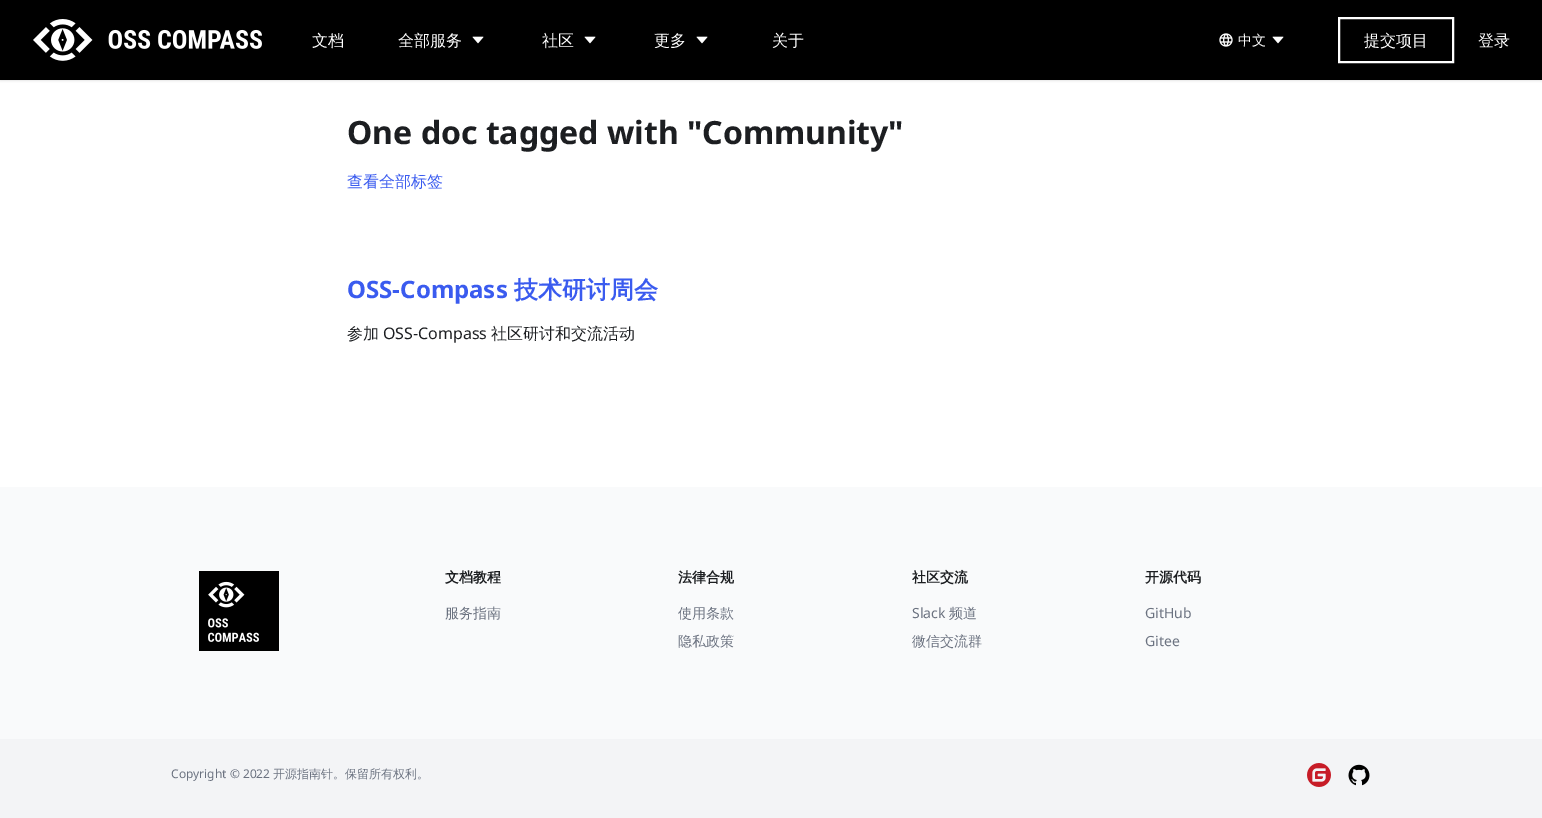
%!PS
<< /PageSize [1542 818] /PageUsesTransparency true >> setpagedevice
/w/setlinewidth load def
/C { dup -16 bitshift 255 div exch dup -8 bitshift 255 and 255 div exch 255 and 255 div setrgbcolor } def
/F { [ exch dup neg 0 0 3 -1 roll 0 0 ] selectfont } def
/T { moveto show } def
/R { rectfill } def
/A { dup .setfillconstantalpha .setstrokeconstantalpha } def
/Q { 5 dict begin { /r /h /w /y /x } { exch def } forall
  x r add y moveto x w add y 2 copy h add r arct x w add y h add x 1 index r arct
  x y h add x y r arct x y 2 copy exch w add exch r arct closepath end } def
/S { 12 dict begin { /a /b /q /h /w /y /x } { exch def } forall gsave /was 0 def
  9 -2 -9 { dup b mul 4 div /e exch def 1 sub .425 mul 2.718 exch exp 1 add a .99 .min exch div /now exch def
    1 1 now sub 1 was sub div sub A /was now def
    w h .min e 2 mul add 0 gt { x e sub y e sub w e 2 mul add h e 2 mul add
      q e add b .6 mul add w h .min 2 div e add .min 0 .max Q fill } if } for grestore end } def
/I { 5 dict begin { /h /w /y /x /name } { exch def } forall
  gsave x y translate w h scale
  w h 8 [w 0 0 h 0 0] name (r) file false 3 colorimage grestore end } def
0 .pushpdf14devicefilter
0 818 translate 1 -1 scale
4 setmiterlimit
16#FFFFFF C
0 0 1542 818 R
16#000000 C
0 1 1542 80 0 1 .1 S
0 0 1542 80 R
(1.rgb) 33 19 229 42 I
/WenQuanYiZenHei-Medium 16 F
16#FFFFFF C
(文档) 312 46 T
(全部服务) 398 46 T
(2.rgb) 472 36 12 8 I
(社区) 542 46 T
(2.rgb) 584 36 12 8 I
(更多) 654 46 T
(2.rgb) 696 36 12 8 I
(关于) 772 46 T
(3.rgb) 1219 33 14 14 I
/WenQuanYiZenHei-Medium 14 F
(中文) 1238 45 T
(2.rgb) 1272 36 12 8 I
2 w
1339 18 114 44 rectstroke
/WenQuanYiZenHei-Medium 16 F
(提交项目) 1364 46 T
(登录) 1478 46 T
/NotoSans-Bold 32 F
16#1C1E21 C
(One doc tagged with "Community") 347 144 T
/WenQuanYiZenHei-Medium 16 F
16#3A5BEF C
(查看全部标签) 347 187 T
/NotoSans-Bold 24 F
(OSS-Compass) 347 298 T
/WenQuanYiZenHei-Bold 24 F
(技术研讨周会) 514 298 T
/WenQuanYiZenHei-Medium 16 F
16#1C1E21 C
(参加) 347 339 T
/NotoSans-Regular 16 F
(OSS-Compass) 383 339 T
/WenQuanYiZenHei-Medium 16 F
(社区研讨和交流活动) 491 339 T
16#F9FAFB C
0 487 1542 252 R
(4.rgb) 199 571 80 80 I
/WenQuanYiZenHei-Bold 14 F
16#1C1E21 C
(文档教程) 445 582 T
/WenQuanYiZenHei-Medium 14 F
16#6B7280 C
(服务指南) 445 618 T
/WenQuanYiZenHei-Bold 14 F
16#1C1E21 C
(法律合规) 678 582 T
/WenQuanYiZenHei-Medium 14 F
16#6B7280 C
(使用条款) 678 618 T
(隐私政策) 678 646 T
/WenQuanYiZenHei-Bold 14 F
16#1C1E21 C
(社区交流) 912 582 T
/NotoSans-Regular 14 F
16#6B7280 C
(Slack) 912 618 T
/WenQuanYiZenHei-Medium 14 F
(频道) 949 618 T
(微信交流群) 912 646 T
/WenQuanYiZenHei-Bold 14 F
16#1C1E21 C
(开源代码) 1145 582 T
/NotoSans-Regular 14 F
16#6B7280 C
(GitHub) 1145 618 T
(Gitee) 1145 646 T
16#F3F4F6 C
0 739 1542 79 R
/NotoSans-Regular 12 F
16#6B7280 C
(Copyright © 2022) 171 778 T
/WenQuanYiZenHei-Medium 12 F
(开源指南针。保留所有权利。) 273 778 T
(5.rgb) 1307 763 24 24 I
(6.rgb) 1348 764 22 22 I
.poppdf14devicefilter showpage
